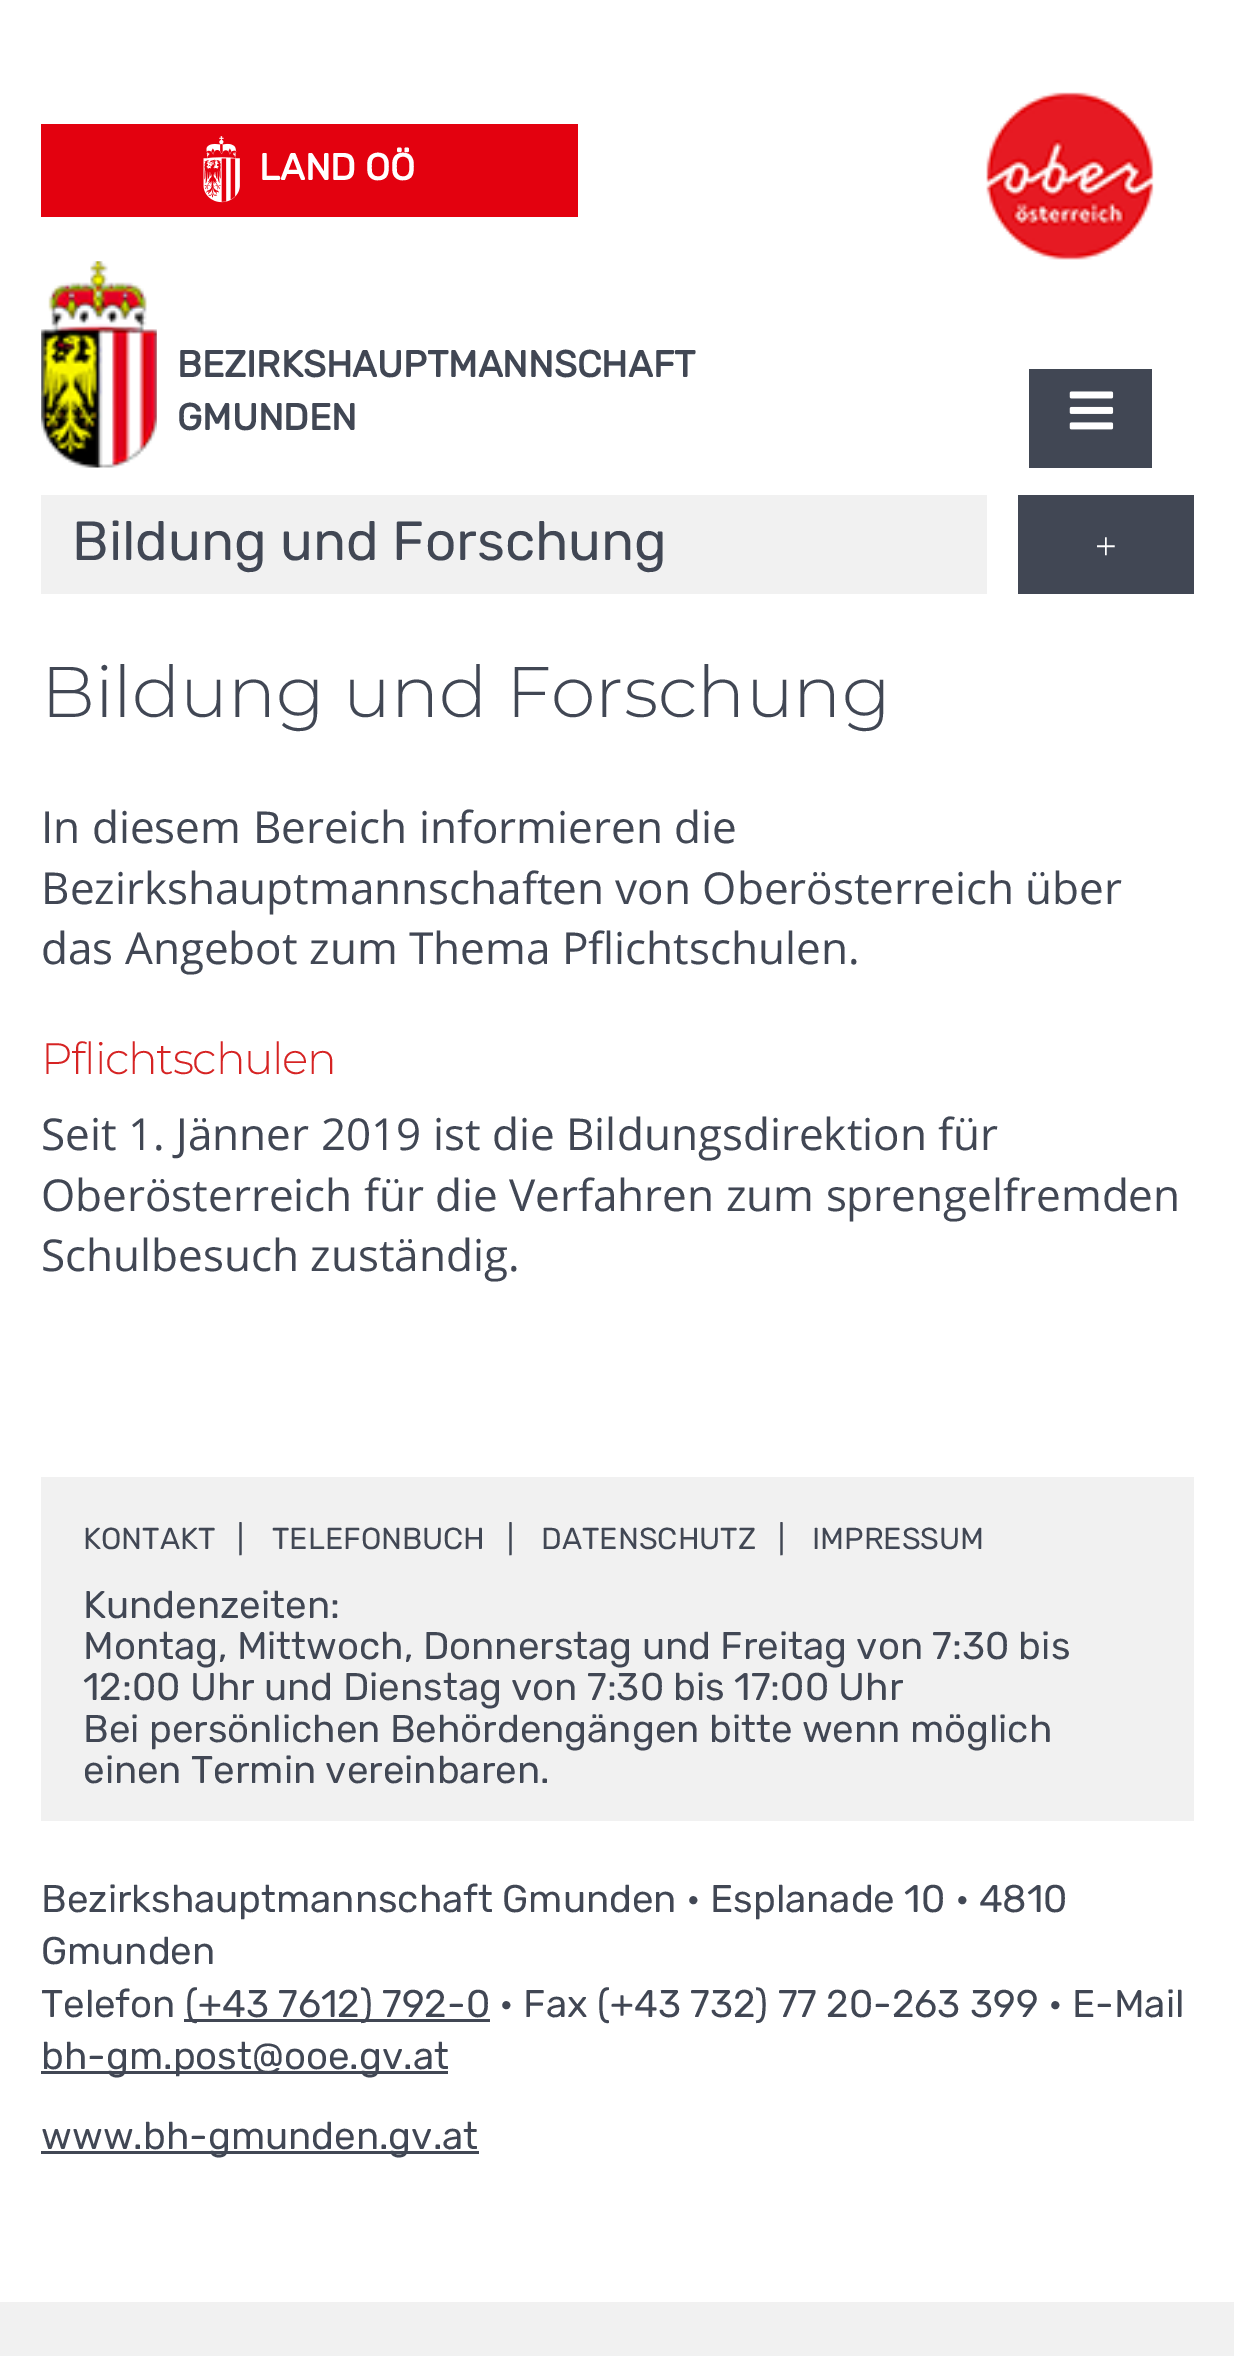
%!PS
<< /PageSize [1234 2356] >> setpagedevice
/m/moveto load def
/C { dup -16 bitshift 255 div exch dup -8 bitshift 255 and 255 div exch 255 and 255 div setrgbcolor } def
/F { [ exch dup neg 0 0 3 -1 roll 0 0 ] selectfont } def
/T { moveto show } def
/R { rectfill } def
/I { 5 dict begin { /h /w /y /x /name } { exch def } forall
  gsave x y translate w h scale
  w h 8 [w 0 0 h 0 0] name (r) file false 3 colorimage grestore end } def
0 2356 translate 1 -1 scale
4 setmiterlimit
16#F1F1F1 C
0 0 1234 2356 R
16#FFFFFF C
0 0 1234 2302 R
16#E3010F C
41 124 537 93 R
(1.rgb) 203 136 37 67 I
/Rubik-Bold 37.1 F
16#FFFFFF C
(LAND OÖ) 259 180 T
(2.rgb) 986 92 168 168 I
(3.rgb) 41 261 116 207 I
16#414754 C
(BEZIRKSHAUPTMANNSCHAFT) 177 377 T
(GMUNDEN) 177 430 T
1029 369 123 99 R
(4.rgb) 1069 391 45 39 I
16#F1F1F1 C
41 495 946 99 R
/Rubik-Regular 55 F
16#414754 C
(Bildung und Forschung) 72 560 T
1018 495 176 99 R
/LiberationSerif-Regular 38.5 F
16#FFFFFF C
(+) 1095 559 T
/Montserrat-Light 71.5 F
16#414754 C
(Bildung und Forschung) 41 717 T
/OpenSans-Regular 44 F
(In diesem Bereich informieren die) 41 843 T
(Bezirkshauptmannschaften von Oberösterreich über) 41 904 T
(das Angebot zum Thema Pflichtschulen.) 41 964 T
/Montserrat-Light 44 F
16#D62323 C
41 1074 m -1.25 0 (Pflichtschulen) ashow
/OpenSans-Regular 44 F
16#414754 C
(Seit 1. Jänner 2019 ist die Bildungsdirektion für) 41 1150 T
(Oberösterreich für die Verfahren zum sprengelfremden) 41 1211 T
(Schulbesuch zuständig.) 41 1271 T
16#F1F1F1 C
41 1477 1153 344 R
/Rubik-Regular 30.25 F
16#414754 C
(KONTAKT) 83 1549 T
(|) 237 1549 T
(TELEFONBUCH) 272 1549 T
(|) 507 1549 T
(DATENSCHUTZ) 541 1549 T
(|) 778 1549 T
(IMPRESSUM) 812 1549 T
/Rubik-Regular 38.5 F
(Kundenzeiten:) 83 1618 T
(Montag, Mittwoch, Donnerstag und Freitag von 7:30 bis) 83 1659 T
(12:00 Uhr und Dienstag von 7:30 bis 17:00 Uhr) 83 1700 T
(Bei persönlichen Behördengängen bitte wenn möglich) 83 1742 T
(einen Termin vereinbaren.) 83 1783 T
(Bezirkshauptmannschaft Gmunden • Esplanade 10 • 4810) 41 1912 T
(Gmunden) 41 1964 T
(Telefon) 41 2017 T
184 2019 306 3 R
(\(+43 7612\) 792-0 • Fax \(+43 732\) 77 20-263 399 • E-Mail) 185 2017 T
41 2071 407 3 R
(bh-gm.post@ooe.gv.at) 41 2069 T
41 2151 438 3 R
(www.bh-gmunden.gv.at) 41 2149 T
showpage
